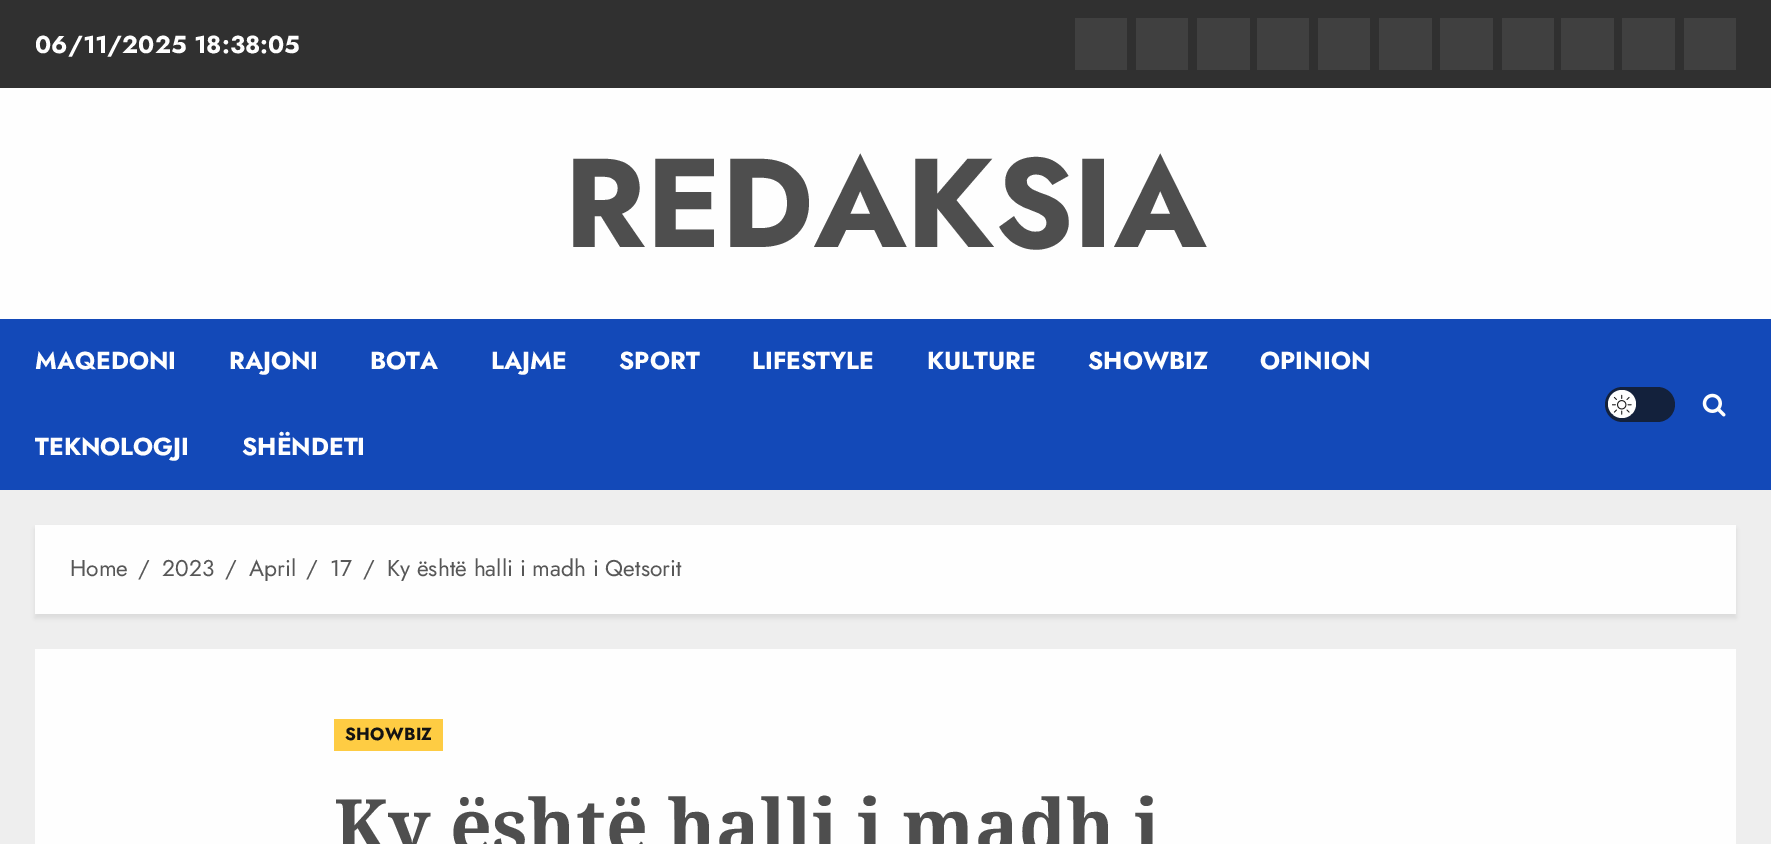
%!PS
<< /PageSize [1771 844] /PageUsesTransparency true >> setpagedevice
/m/moveto load def
/f/fill load def
/C { dup -16 bitshift 255 div exch dup -8 bitshift 255 and 255 div exch 255 and 255 div setrgbcolor } def
/F { [ exch dup neg 0 0 3 -1 roll 0 0 ] selectfont } def
/T { moveto show } def
/R { rectfill } def
/A { dup .setfillconstantalpha .setstrokeconstantalpha } def
/O { newpath 0 360 arc closepath } def
/Q { 5 dict begin { /r /h /w /y /x } { exch def } forall
  x r add y moveto x w add y 2 copy h add r arct x w add y h add x 1 index r arct
  x y h add x y r arct x y 2 copy exch w add exch r arct closepath end } def
/S { 12 dict begin { /a /b /q /h /w /y /x } { exch def } forall gsave /was 0 def
  9 -2 -9 { dup b mul 4 div /e exch def 1 sub .425 mul 2.718 exch exp 1 add a .99 .min exch div /now exch def
    1 1 now sub 1 was sub div sub A /was now def
    w h .min e 2 mul add 0 gt { x e sub y e sub w e 2 mul add h e 2 mul add
      q e add b .6 mul add w h .min 2 div e add .min 0 .max Q fill } if } for grestore end } def
/I { 5 dict begin { /h /w /y /x /name } { exch def } forall
  gsave x y translate w h scale
  w h 8 [w 0 0 h 0 0] name (r) file false 3 colorimage grestore end } def
0 .pushpdf14devicefilter
0 844 translate 1 -1 scale
4 setmiterlimit
16#EEEEEE C
0 0 1771 844 R
16#303030 C
0 0 1771 88 R
/Jost-Bold 24.5 F
16#FEFEFE C
(06/11/2025 18:38:05) 35 53 T
16#404040 C
1075 18 52 52 R
1136 18 52 52 R
1197 18 53 52 R
1257 18 52 52 R
1318 18 52 52 R
1379 18 53 52 R
1440 18 53 52 R
1502 18 52 52 R
1561 18 53 52 R
1622 18 53 52 R
1684 18 52 52 R
16#FEFEFE C
0 88 1771 231 R
/Jost-Bold 126 F
16#4E4E4E C
(REDAKSIA) 564 247 T
16#1349B8 C
0 319 1771 171 R
/Jost-Bold 24.5 F
16#FEFEFE C
(MAQEDONI) 35 369 T
(RAJONI) 229 369 T
(BOTA) 370 369 T
(LAJME) 491 369 T
(SPORT) 619 369 T
(LIFESTYLE) 752 369 T
(KULTURE) 927 369 T
(SHOWBIZ) 1088 369 T
(OPINION) 1260 369 T
(TEKNOLOGJI) 35 455 T
(SHËNDETI) 242 455 T
16#13213C C
1605 387 70 35 17.5 Q f
16#FEFEFE C
1622 404 14 O f
(1.rgb) 1612 394 20 21 I
(2.rgb) 1702 393 24 24 I
16#131313 C
35 529 1701 89 0 2 .08 S
16#FEFEFE C
35 525 1701 89 R
/Jost-Regular 22.75 F
16#575757 C
(Home) 70 576 T
(/) 138 576 T
(2023) 162 576 T
(/) 225 576 T
(April) 249 576 T
(/) 306 576 T
(17) 330 576 T
(/) 363 576 T
(Ky është halli i madh i Qetsorit) 387 576 T
16#FEFEFE C
35 649 1701 195 R
16#FECC43 C
334 719 109 32 R
/Jost-Bold 17.5 F
16#131313 C
345 740 m .25 0 (SHOWBIZ) ashow
/NotoSerif-Bold 73.5 F
16#4E4E4E C
(Ky është halli i madh i) 334 852 T
.poppdf14devicefilter showpage
